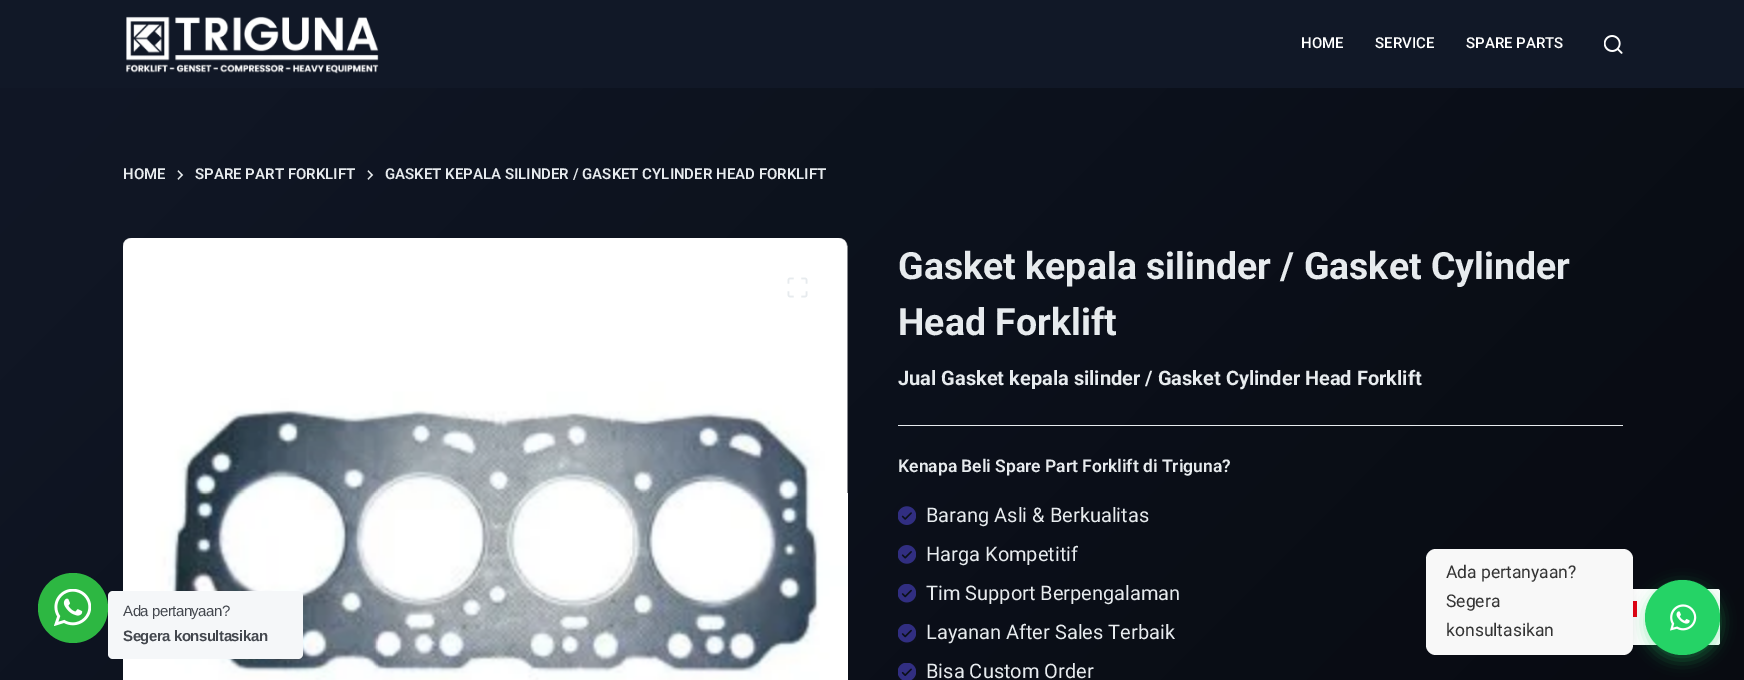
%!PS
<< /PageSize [1744 680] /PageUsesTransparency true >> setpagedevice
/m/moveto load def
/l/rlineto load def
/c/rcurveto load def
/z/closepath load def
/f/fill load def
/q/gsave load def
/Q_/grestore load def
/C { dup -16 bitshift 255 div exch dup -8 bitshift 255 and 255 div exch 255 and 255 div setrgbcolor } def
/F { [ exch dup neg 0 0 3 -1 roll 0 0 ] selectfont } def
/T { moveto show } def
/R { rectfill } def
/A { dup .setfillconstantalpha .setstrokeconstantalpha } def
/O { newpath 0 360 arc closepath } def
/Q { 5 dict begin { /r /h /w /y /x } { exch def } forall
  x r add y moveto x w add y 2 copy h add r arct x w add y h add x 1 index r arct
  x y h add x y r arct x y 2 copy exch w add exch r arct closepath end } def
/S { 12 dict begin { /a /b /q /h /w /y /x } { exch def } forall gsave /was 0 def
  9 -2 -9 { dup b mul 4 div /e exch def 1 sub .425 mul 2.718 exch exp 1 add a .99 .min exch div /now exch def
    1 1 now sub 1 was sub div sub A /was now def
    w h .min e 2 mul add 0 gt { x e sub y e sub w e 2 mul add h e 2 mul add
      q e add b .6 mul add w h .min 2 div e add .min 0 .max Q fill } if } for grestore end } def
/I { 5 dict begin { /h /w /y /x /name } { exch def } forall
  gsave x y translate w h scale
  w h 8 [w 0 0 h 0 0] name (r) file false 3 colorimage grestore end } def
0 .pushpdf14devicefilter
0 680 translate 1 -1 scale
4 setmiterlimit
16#FFFFFF C
0 0 1744 680 R
q 0 88 m 1744 0 l 0 592 l -1744 0 l z clip newpath
<< /ShadingType 2 /ColorSpace /DeviceRGB /Coords [-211 211 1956 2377] /Extend [true true] /Function << /FunctionType 2 /Domain [0 1] /C0 [.067 .094 .153] /C1 [0 0 0] /N 1 >> >> shfill Q_
16#111827 C
0 0 1744 88 R
(1.rgb) 126 16 253 58 I
/Roboto-Medium 15 F
16#FFFFFF C
(HOME) 1301 48 T
(SERVICE) 1375 48 T
(SPARE PARTS) 1466 48 T
(2.rgb) 1604 35 19 19 I
/Roboto-SemiBold 15 F
16#E7EBEE C
(HOME) 123 179 T
(3.rgb) 177 170 7 10 I
(SPARE PART FORKLIFT) 195 179 T
(4.rgb) 367 170 7 10 I
(GASKET KEPALA SILINDER / GASKET CYLINDER HEAD FORKLIFT) 385 179 T
(5.rgb) 123 238 725 442 I
(6.rgb) 787 277 21 21 I
/Roboto-Bold 37.5 F
(Gasket kepala silinder / Gasket Cylinder) 898 279 T
(Head Forklift) 898 335 T
/Roboto-Bold 20 F
(Jual Gasket kepala silinder / Gasket Cylinder Head Forklift) 898 385 T
898 425 725 1 R
/Roboto-SemiBold 17.5 F
(Kenapa Beli Spare Part Forklift di Triguna?) 898 472 T
(7.rgb) 898 506 18 19 I
/Roboto-Regular 20 F
(Barang Asli & Berkualitas) 926 522 T
(8.rgb) 898 545 18 19 I
(Harga Kompetitif) 926 561 T
(9.rgb) 898 584 18 19 I
(Tim Support Berpengalaman) 926 600 T
(10.rgb) 898 624 18 19 I
(Layanan After Sales Terbaik) 926 639 T
(11.rgb) 898 663 18 17 I
(Bisa Custom Order) 926 678 T
16#2DB742 C
73 608 35 O f
(12.rgb) 54 589 37 37 I
16#F5F7F9 C
108 591 195 68 5 Q f
/LiberationSans-Regular 15 F
16#43474E C
123 616 m -.5 0 (Ada pertanyaan?) ashow
/LiberationSans-Bold 15 F
123 641 m -.5 0 (Segera konsultasikan) ashow
16#FFFFFF C
1578 589 142 56 2.5 Q f
q
1596 601 42 32 4 Q clip newpath
16#E70011 C
1600 601 m 37 0 l 0 16 l -41 0 l 0 -12 l 0 -2 2 -4 4 -4 c z f
Q_
16#25D366 C
1645 585 75 75 37.5 7.5 .4 S
1682.5 617.5 37.5 O f
16#000000 C
1426 551 207 107 10 5 .08 S
16#F8F8F8 C
1426 549 207 106 10 Q f
/Roboto-Regular 17.5 F
16#333333 C
(Ada pertanyaan?) 1446 578 T
(Segera) 1446 607 T
(konsultasikan) 1446 636 T
(13.rgb) 1670 604 27 27 I
.poppdf14devicefilter showpage
